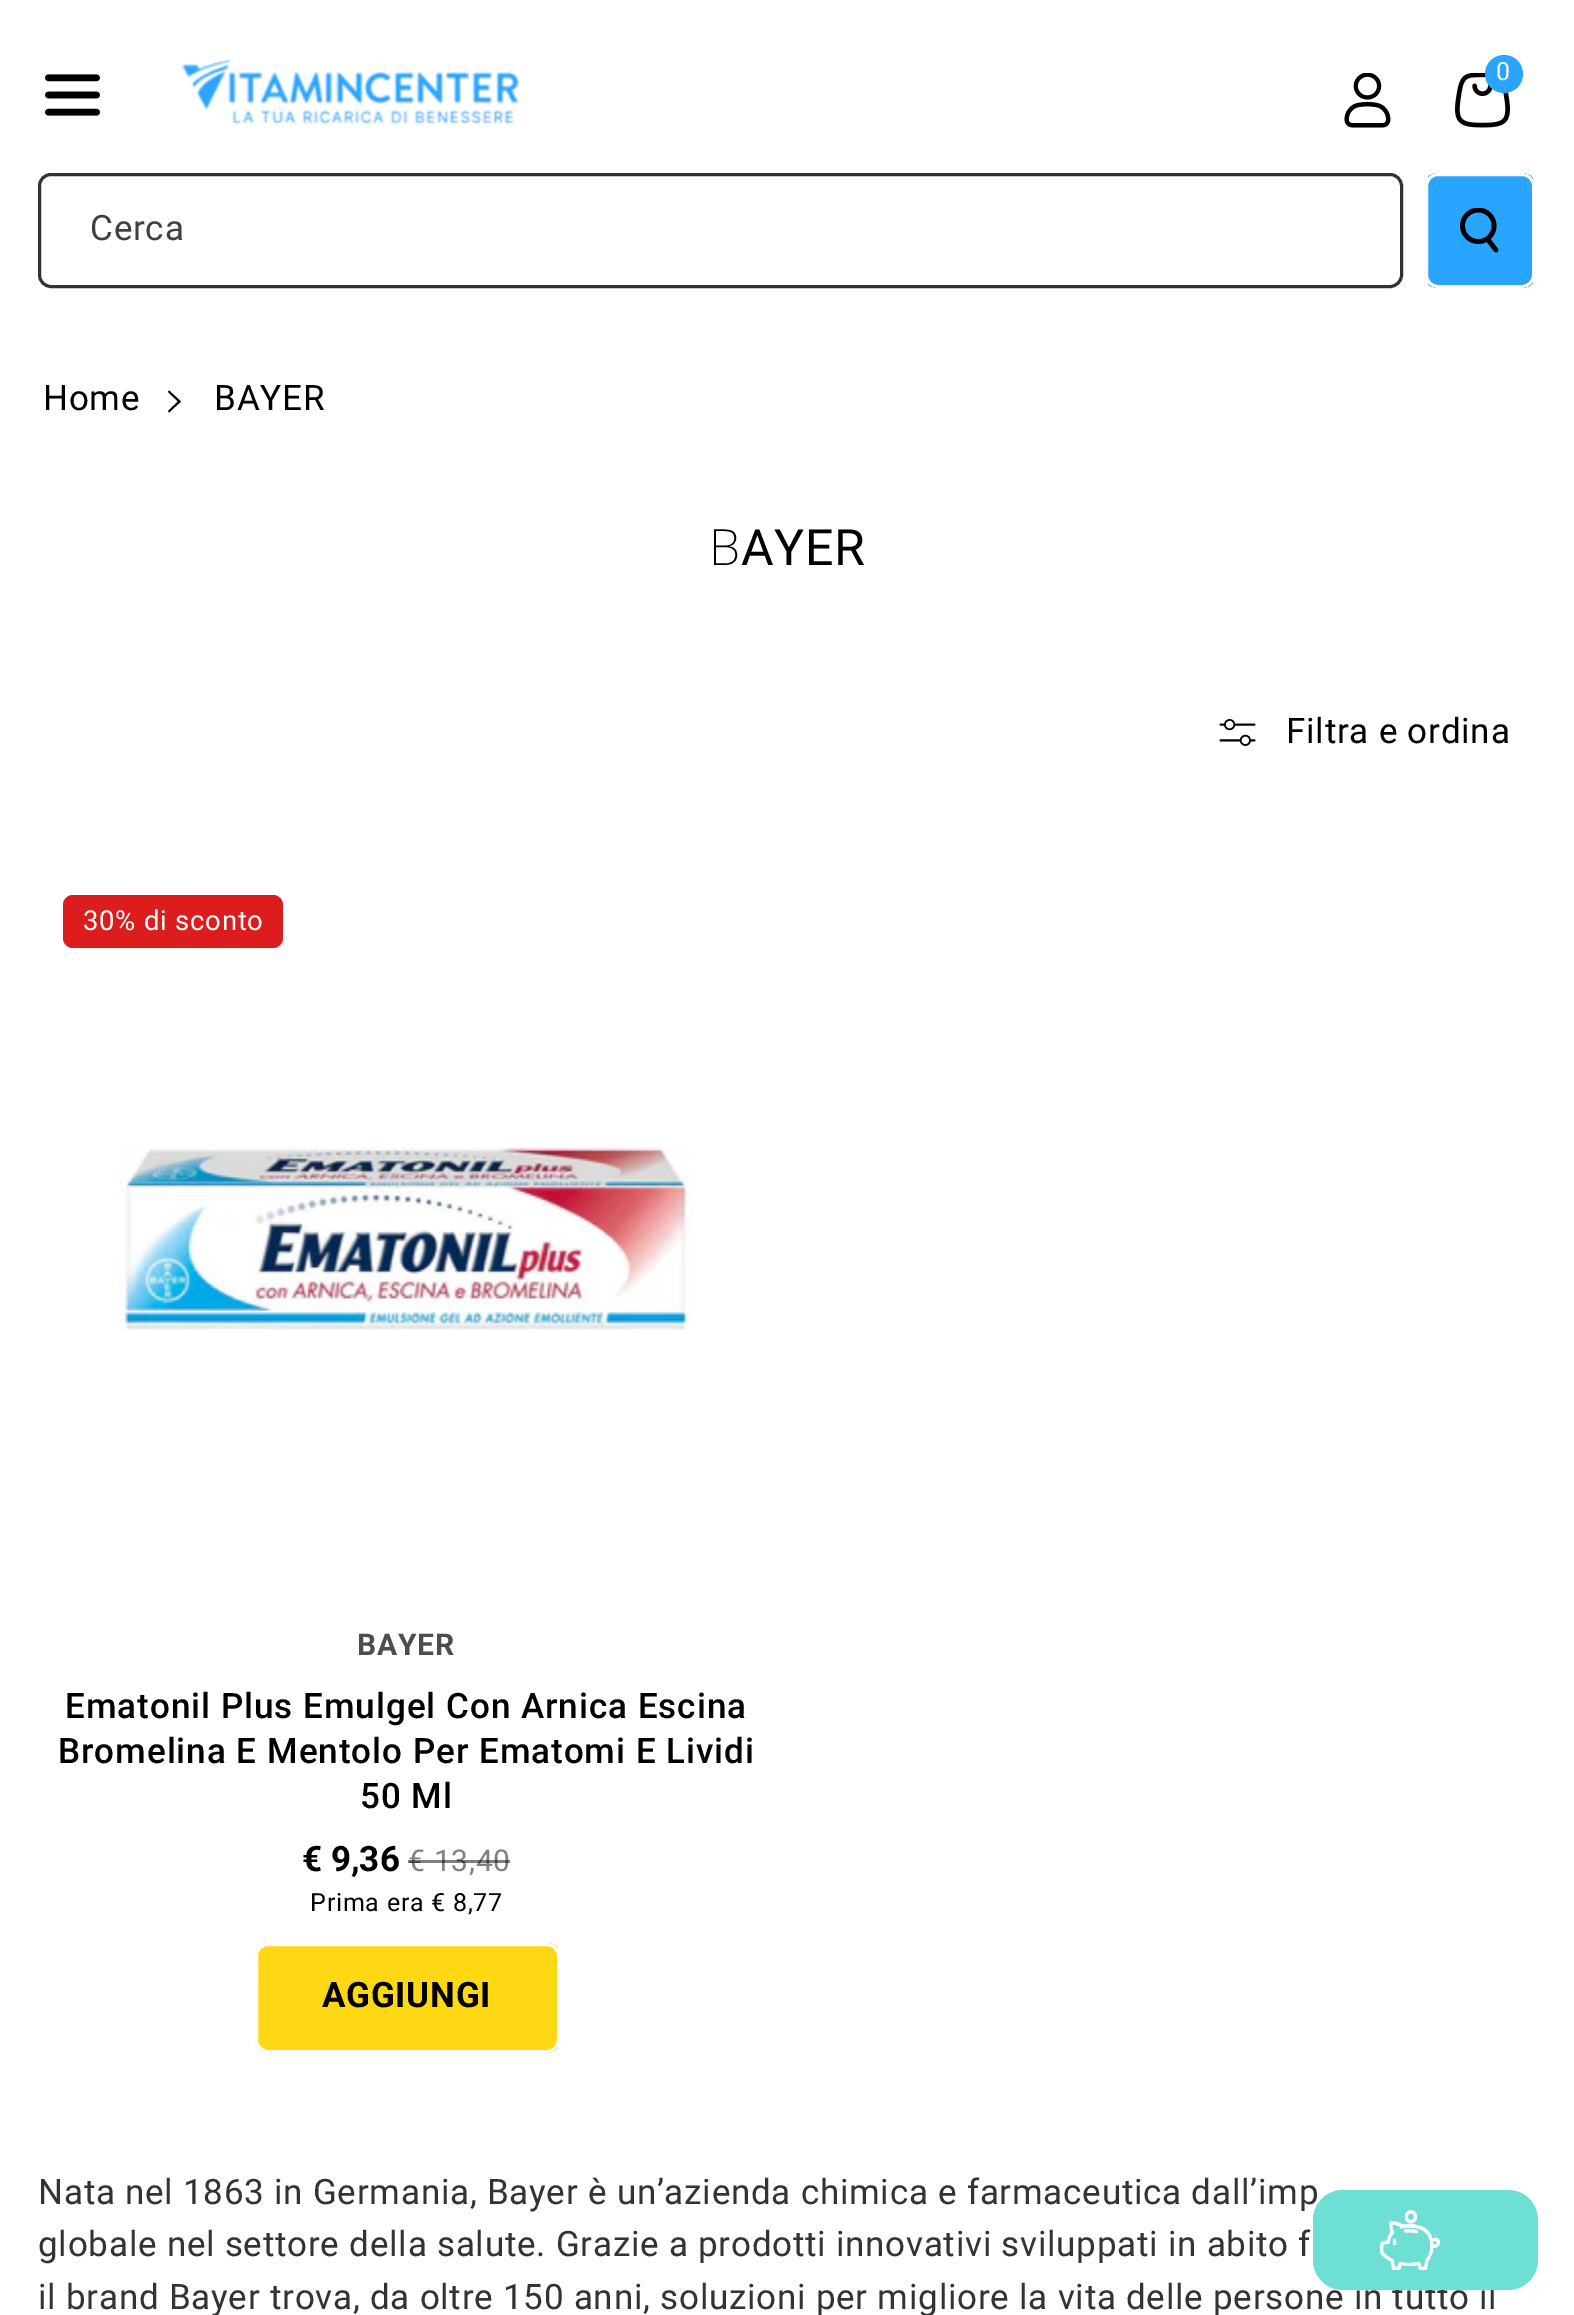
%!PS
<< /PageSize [1574 2315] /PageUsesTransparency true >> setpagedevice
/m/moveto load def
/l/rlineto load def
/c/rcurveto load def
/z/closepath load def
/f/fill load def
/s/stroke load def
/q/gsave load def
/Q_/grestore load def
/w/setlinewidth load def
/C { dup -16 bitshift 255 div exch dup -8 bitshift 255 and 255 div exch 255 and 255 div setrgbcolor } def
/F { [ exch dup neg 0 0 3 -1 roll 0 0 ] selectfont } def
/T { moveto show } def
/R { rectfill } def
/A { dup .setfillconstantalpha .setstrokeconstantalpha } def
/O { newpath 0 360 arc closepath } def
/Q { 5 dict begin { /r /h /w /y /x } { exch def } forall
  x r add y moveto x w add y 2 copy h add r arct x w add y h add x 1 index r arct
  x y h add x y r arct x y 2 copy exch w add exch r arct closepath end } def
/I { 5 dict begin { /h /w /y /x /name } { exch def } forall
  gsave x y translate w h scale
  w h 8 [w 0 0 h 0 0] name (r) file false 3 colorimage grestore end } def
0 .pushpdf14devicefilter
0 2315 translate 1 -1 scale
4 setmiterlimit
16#FFFFFF C
0 0 1574 2315 R
(1.rgb) 181 59 338 67 I
(2.rgb) 1344 73 47 55 I
(3.rgb) 1455 73 55 55 I
16#2AA5FF C
1504 74 19 O f
/Roboto-Regular 25 F
16#FFFFFF C
1496 80 m .75 0 (0) ashow
(4.rgb) 45 74 55 42 I
16#333333 C
3 w
39.5 174.5 1362 112 11.5 Q s
/Roboto-Regular 35 F
16#404040 C
90 240 m .75 0 (Cerca) ashow
q
1425 173 110 115 13 Q clip newpath
16#2AA5FF C
1428 173 105 115 R
Q_
16#FFFFFF C
1426.5 174.5 107 112 11.5 Q s
(5.rgb) 1460 208 39 45 I
16#000000 C
43 410 m .75 0 (Home) ashow
168 411 m 1 1.5 l 12 -11 l -12 -11 l -1 1.5 l 10 9.5 l z f
214 410 m .75 0 (BAYER) ashow
(6.rgb) 1219 719 37 27 I
1286 743 m .75 0 (Filtra e ordina) ashow
16#DD1D1D C
63 895 220 53 10 Q f
/Roboto-Regular 27.5 F
16#FFFFFF C
83 930 m .75 0 (30% di sconto) ashow
(7.rgb) 119 1146 574 184 I
/Roboto-Bold 30 F
16#4D4D4D C
357 1655 m .75 0 (BAYER) ashow
/Roboto-Medium 35 F
16#000000 C
65 1718 m 1 0 (Ematonil Plus Emulgel Con Arnica Escina) ashow
58 1763 m 1 0 (Bromelina E Mentolo Per Ematomi E Lividi) ashow
360 1808 m 1 0 (50 Ml) ashow
/Roboto-Bold 35 F
(€ 9,36) 302 1871 T
/Roboto-Regular 30 F
16#808080 C
408 1871 m .75 0 (€ 13,40) ashow
0.5 A
16#000000 C
408 1860 102 3 R
/Roboto-Regular 25 F
1 A
310 1911 m .75 0 (Prima era € 8,77) ashow
q
255 1943 305 110 13 Q clip newpath
16#FFD814 C
268 1943 m 290 0 l 0 110 l -290 0 l -7 0 -13 -6 -13 -13 c 0 -84 l 0 -7 6 -13 13 -13 c z f
Q_
16#FFFFFF C
256.5 1944.5 302 107 11.5 Q s
/Roboto-Bold 35 F
16#000000 C
322 2007 m .75 0 (AGGIUNGI) ashow
/Roboto-Regular 35 F
16#333333 C
38 2204 m .75 0 (Nata nel 1863 in Germania, Bayer è un’azienda chimica e farmaceutica dall’imp) ashow
38 2256 m .75 0 (globale nel settore della salute. Grazie a prodotti innovativi sviluppati in abito f) ashow
38 2309 m .75 0 (il brand Bayer trova, da oltre 150 anni, soluzioni per migliore la vita delle persone in tutto il) ashow
/NotoSans-ExtraLight 50 F
16#000000 C
709 565 m .75 0 (B) ashow
/Roboto-Regular 50 F
741 565 m .75 0 (AYER) ashow
16#6EDFD4 C
1313 2190 225 100 30 Q f
(8.rgb) 1380 2210 60 60 I
.poppdf14devicefilter showpage
